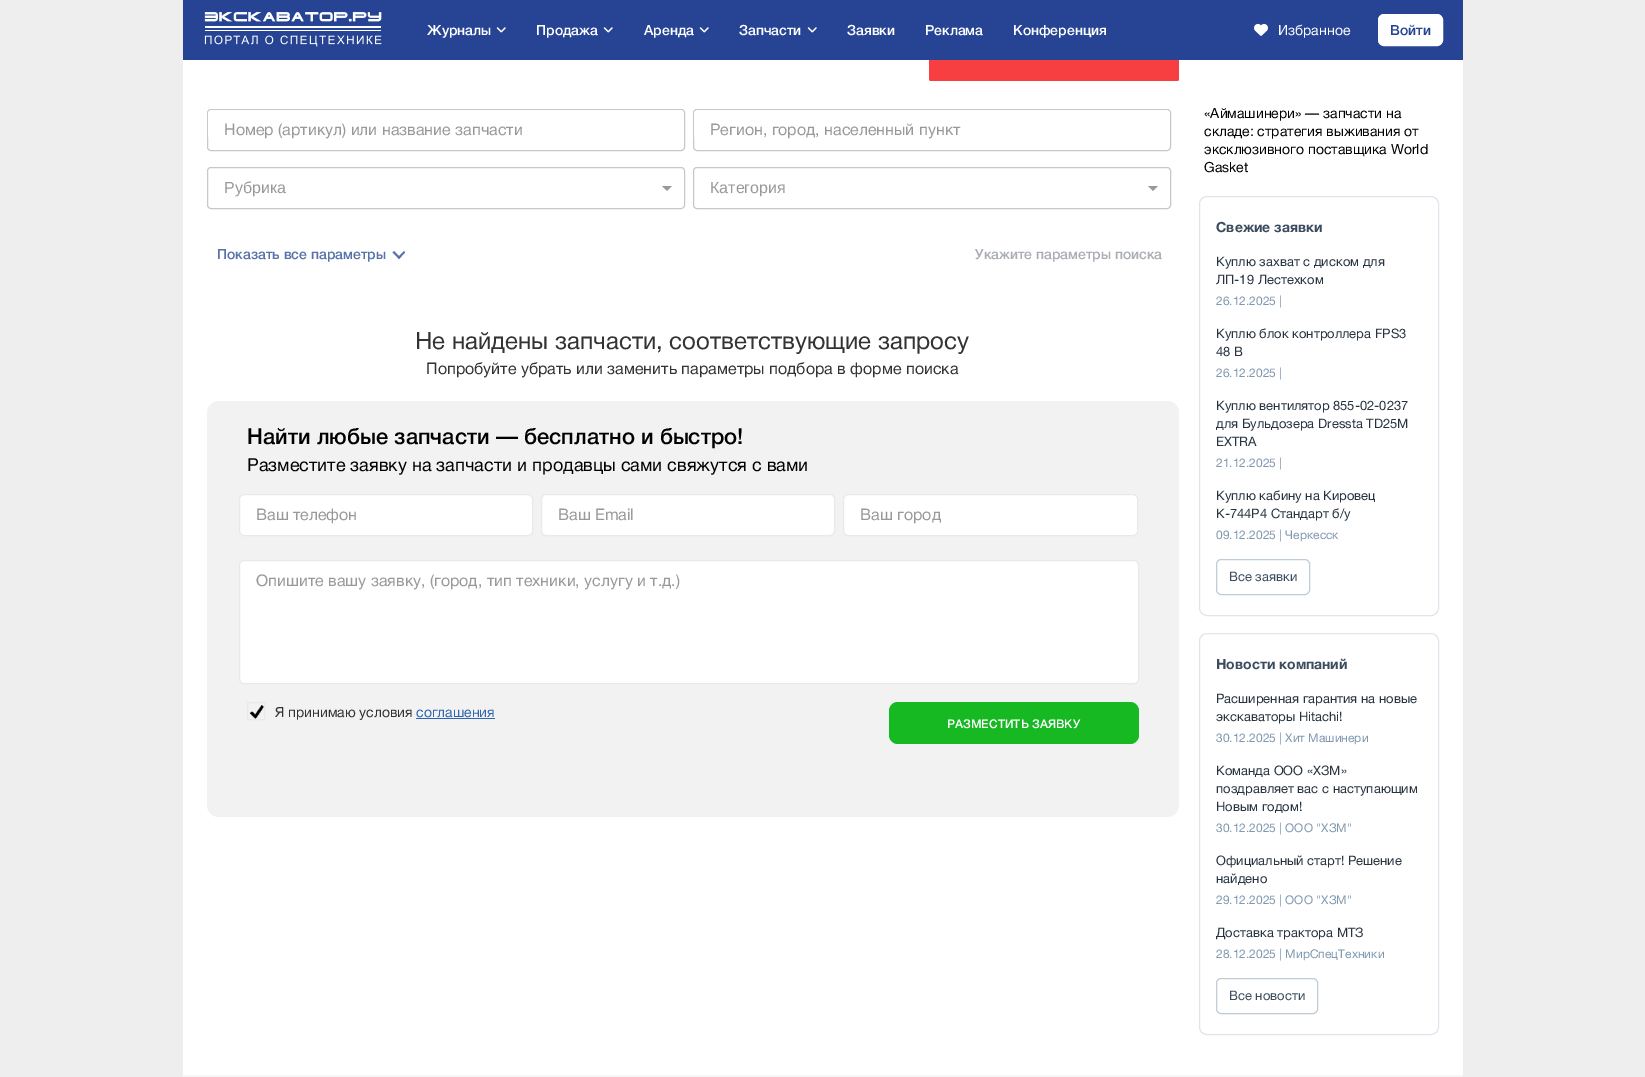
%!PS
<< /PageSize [1645 1077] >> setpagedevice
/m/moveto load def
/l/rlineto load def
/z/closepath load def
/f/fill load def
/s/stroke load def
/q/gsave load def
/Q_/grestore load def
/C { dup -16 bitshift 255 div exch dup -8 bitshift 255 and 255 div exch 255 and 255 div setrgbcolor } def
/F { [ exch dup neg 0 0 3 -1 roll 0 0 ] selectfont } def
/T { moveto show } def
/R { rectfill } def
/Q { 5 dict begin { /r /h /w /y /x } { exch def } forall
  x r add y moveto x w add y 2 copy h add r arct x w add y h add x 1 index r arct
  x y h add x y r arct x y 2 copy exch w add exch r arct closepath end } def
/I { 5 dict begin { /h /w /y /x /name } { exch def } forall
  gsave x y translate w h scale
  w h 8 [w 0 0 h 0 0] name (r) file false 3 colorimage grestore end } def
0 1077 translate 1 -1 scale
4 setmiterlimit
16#EEEEEE C
0 0 1645 1077 R
16#FFFFFF C
183 60 1280 1015 R
16#F73E40 C
929 39 250 42 2 Q f
16#264493 C
183 0 1280 60 R
(1.rgb) 204 12 178 35 I
/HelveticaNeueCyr-Medium 14 F
16#FFFFFF C
(Журналы) 427 35 T
(2.rgb) 496 27 10 6 I
(Продажа) 536 35 T
(2.rgb) 603 27 10 6 I
(Аренда) 644 35 T
(2.rgb) 699 27 10 6 I
(Запчасти) 739 35 T
(2.rgb) 807 27 10 6 I
(Заявки) 847 35 T
(Реклама) 925 35 T
(Конференция) 1013 35 T
(3.rgb) 1254 23 14 13 I
/HelveticaNeueCyr-Regular 14 F
(Избранное) 1278 35 T
1378.5 14.5 64 31 5.5 Q q f Q_
s
/HelveticaNeueCyr-Medium 14 F
16#264493 C
(Войти) 1390 35 T
16#C8C8C8 C
207.5 109.5 477 41 3.5 Q s
16#FFFFFF C
208 110 476 29 4 Q f
/HelveticaNeueCyr-Regular 16 F
16#999999 C
(Номер \(артикул\) или название запчасти) 224 135 T
16#C8C8C8 C
693.5 109.5 477 41 3.5 Q s
16#FFFFFF C
694 110 476 29 4 Q f
16#999999 C
(Регион, город, населенный пункт) 710 135 T
16#C8C8C8 C
207.5 167.5 477 41 3.5 Q s
/LiberationSans-Regular 16 F
16#999999 C
(Рубрика) 224 193 T
662 186 m 10 0 l -5 5 l z f
16#C8C8C8 C
693.5 167.5 477 41 3.5 Q s
16#999999 C
(Категория) 710 193 T
1148 186 m 10 0 l -5 5 l z f
/HelveticaNeueCyr-Medium 14 F
16#5773AA C
(Показать все параметры) 217 259 T
404 251 m 1 1.5 l -6 6.5 l -1.5 -1.5 l z f
394 251 m 6.5 6.5 l -1.5 1.5 l -6.5 -6.5 l z f
16#AAAEB5 C
(Укажите параметры поиска) 975 259 T
/HelveticaNeueCyr-Regular 24 F
16#333333 C
(Не найдены запчасти, соответствующие запросу) 415 349 T
/HelveticaNeueCyr-Regular 16 F
(Попробуйте убрать или заменить параметры подбора в форме поиска) 426 374 T
16#F2F2F2 C
207 401 972 416 12 Q f
/HelveticaNeueCyr-Medium 22 F
16#000000 C
(Найти любые запчасти — бесплатно и быстро!) 247 444 T
/HelveticaNeueCyr-Regular 18 F
(Разместите заявку на запчасти и продавцы сами свяжутся с вами) 247 471 T
16#FFFFFF C
239.5 494.5 293 41 4.5 Q q f Q_
16#E9E9E9 C
s
/HelveticaNeueCyr-Regular 16 F
16#999999 C
(Ваш телефон) 256 520 T
16#FFFFFF C
541.5 494.5 293 41 4.5 Q q f Q_
16#E9E9E9 C
s
16#999999 C
(Ваш Email) 558 520 T
16#FFFFFF C
843.5 494.5 294 41 4.5 Q q f Q_
16#E9E9E9 C
s
16#999999 C
(Ваш город) 860 520 T
16#FFFFFF C
239.5 560.5 899 123 4.5 Q q f Q_
16#E9E9E9 C
s
16#999999 C
(Опишите вашу заявку, \(город, тип техники, услугу и т.д.\)) 256 586 T
(4.rgb) 250 705 14 14 I
16#E9E9E9 C
247.5 702.5 17 17 rectstroke
/HelveticaNeueCyr-Regular 14 F
16#333333 C
(Я принимаю условия) 275 717 T
16#3066AE C
(соглашения) 416 717 T
416 718 79 1 R
16#16B921 C
889 702 250 42 9 Q f
/HelveticaNeueCyr-Medium 12 F
16#FFFFFF C
(РАЗМЕСТИТЬ ЗАЯВКУ) 947 728 T
/HelveticaNeueCyr-Regular 14 F
16#000000 C
(«Аймашинери» — запчасти на) 1204 118 T
(складе: стратегия выживания от) 1204 136 T
(эксклюзивного поставщика World) 1204 154 T
(Gasket) 1204 172 T
16#E0E5EB C
1199.5 196.5 239 419 7.5 Q s
/HelveticaNeue-Bold 14 F
16#3B4C5E C
(Свежие заявки) 1216 232 T
/HelveticaNeue-Regular 13 F
16#27333F C
(Куплю захват с диском для) 1216 266 T
(ЛП-19 Лестехком) 1216 284 T
/HelveticaNeue-Regular 12 F
16#8198B1 C
(26.12.2025 |) 1216 305 T
/HelveticaNeue-Regular 13 F
16#27333F C
(Куплю блок контроллера FPS3) 1216 338 T
(48 В) 1216 356 T
/HelveticaNeue-Regular 12 F
16#8198B1 C
(26.12.2025 |) 1216 377 T
/HelveticaNeue-Regular 13 F
16#27333F C
(Куплю вентилятор 855-02-0237) 1216 410 T
(для Бульдозера Dressta TD25M) 1216 428 T
(EXTRA) 1216 446 T
/HelveticaNeue-Regular 12 F
16#8198B1 C
(21.12.2025 |) 1216 467 T
/HelveticaNeue-Regular 13 F
16#27333F C
(Куплю кабину на Кировец) 1216 500 T
(К-744Р4 Стандарт б/у) 1216 518 T
/HelveticaNeue-Regular 12 F
16#8198B1 C
(09.12.2025 | Черкесск) 1216 539 T
16#C0CCD8 C
1216.5 559.5 93 35 4.5 Q s
/HelveticaNeue-Regular 13 F
16#3B4C5E C
(Все заявки) 1229 581 T
16#E0E5EB C
1199.5 633.5 239 401 7.5 Q s
/HelveticaNeue-Bold 14 F
16#3B4C5E C
(Новости компаний) 1216 669 T
/HelveticaNeue-Regular 13 F
16#27333F C
(Расширенная гарантия на новые) 1216 703 T
(экскаваторы Hitachi!) 1216 721 T
/HelveticaNeue-Regular 12 F
16#8198B1 C
(30.12.2025 | Хит Машинери) 1216 742 T
/HelveticaNeue-Regular 13 F
16#27333F C
(Команда ООО «ХЗМ») 1216 775 T
(поздравляет вас с наступающим) 1216 793 T
(Новым годом!) 1216 811 T
/HelveticaNeue-Regular 12 F
16#8198B1 C
(30.12.2025 | ООО "ХЗМ") 1216 832 T
/HelveticaNeue-Regular 13 F
16#27333F C
(Официальный старт! Решение) 1216 865 T
(найдено) 1216 883 T
/HelveticaNeue-Regular 12 F
16#8198B1 C
(29.12.2025 | ООО "ХЗМ") 1216 904 T
/HelveticaNeue-Regular 13 F
16#27333F C
(Доставка трактора МТЗ) 1216 937 T
/HelveticaNeue-Regular 12 F
16#8198B1 C
(28.12.2025 | МирСпецТехники) 1216 958 T
16#C0CCD8 C
1216.5 978.5 101 35 4.5 Q s
/HelveticaNeue-Regular 13 F
16#3B4C5E C
(Все новости) 1229 1000 T
16#F6F6F6 C
183 1075 1280 2 R
showpage
